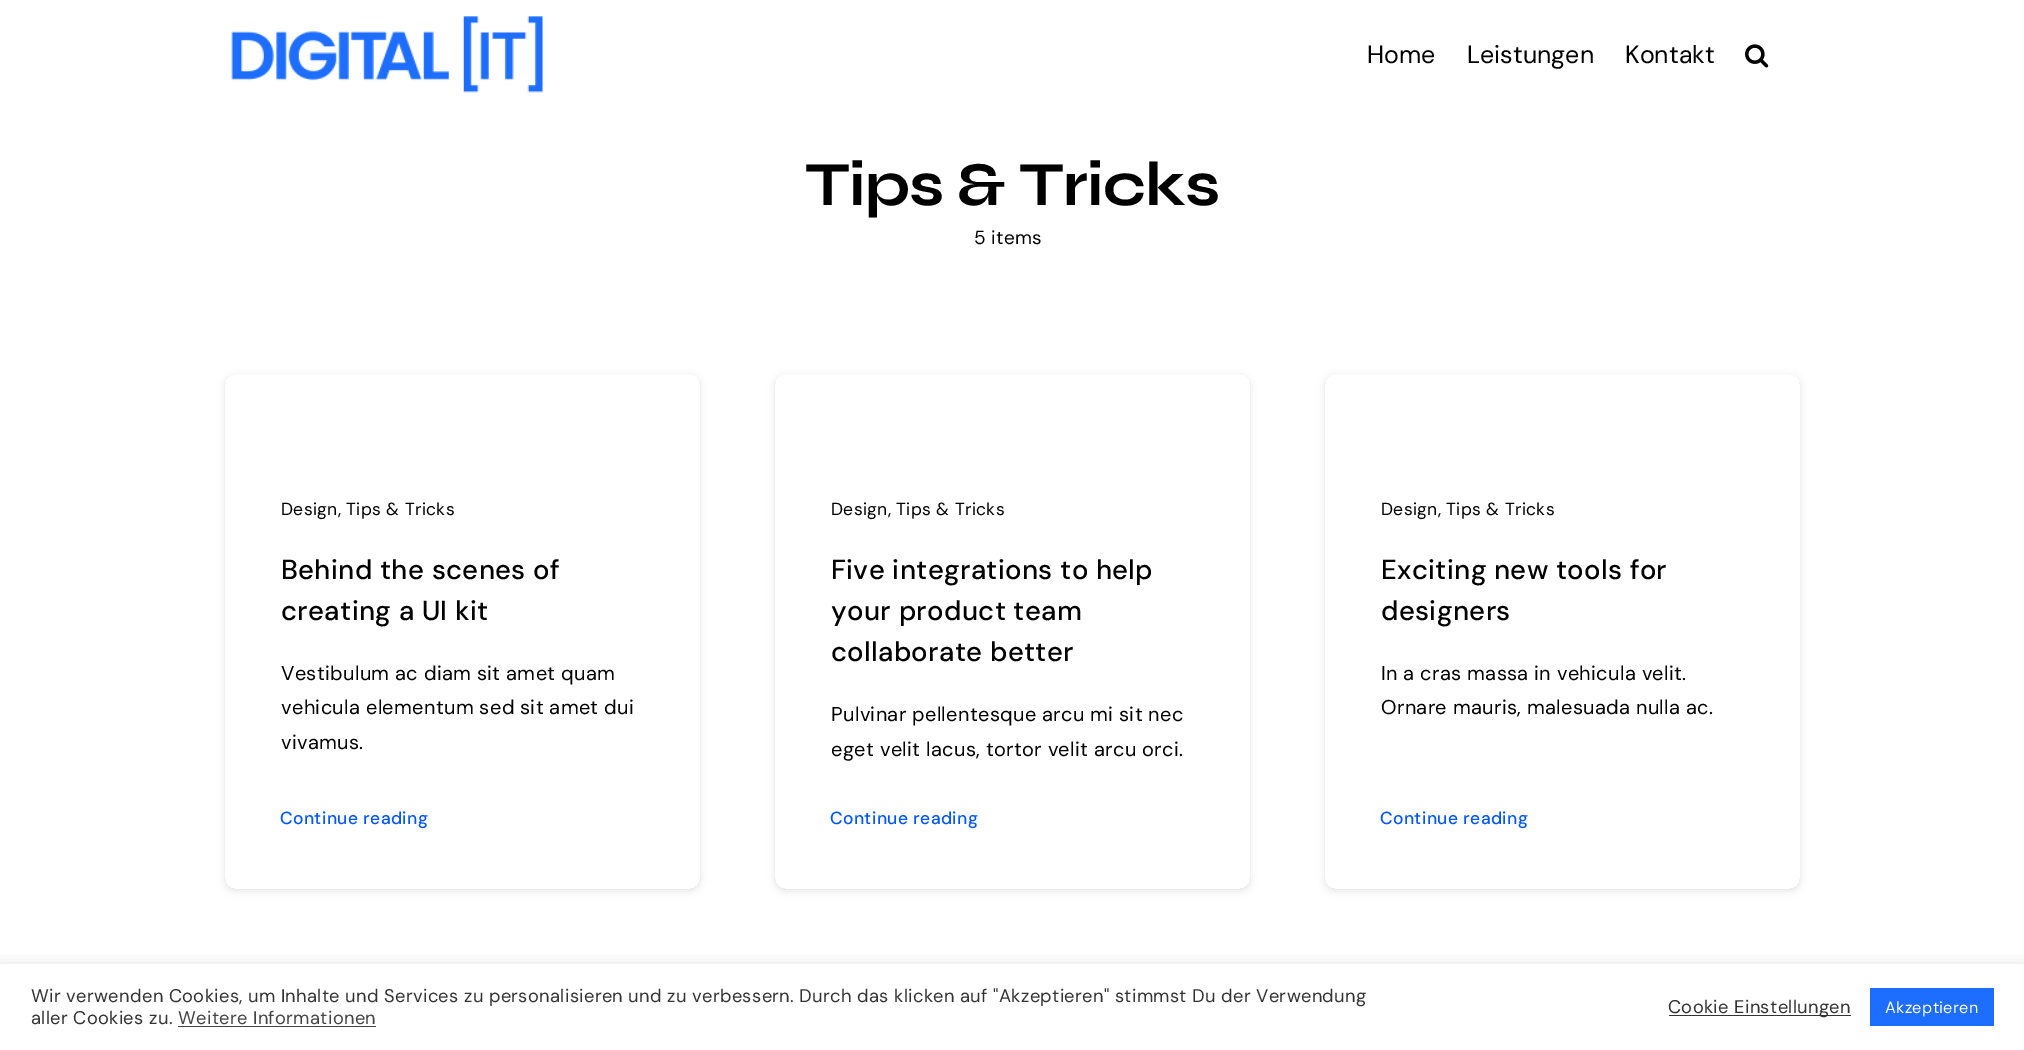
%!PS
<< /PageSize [2024 1050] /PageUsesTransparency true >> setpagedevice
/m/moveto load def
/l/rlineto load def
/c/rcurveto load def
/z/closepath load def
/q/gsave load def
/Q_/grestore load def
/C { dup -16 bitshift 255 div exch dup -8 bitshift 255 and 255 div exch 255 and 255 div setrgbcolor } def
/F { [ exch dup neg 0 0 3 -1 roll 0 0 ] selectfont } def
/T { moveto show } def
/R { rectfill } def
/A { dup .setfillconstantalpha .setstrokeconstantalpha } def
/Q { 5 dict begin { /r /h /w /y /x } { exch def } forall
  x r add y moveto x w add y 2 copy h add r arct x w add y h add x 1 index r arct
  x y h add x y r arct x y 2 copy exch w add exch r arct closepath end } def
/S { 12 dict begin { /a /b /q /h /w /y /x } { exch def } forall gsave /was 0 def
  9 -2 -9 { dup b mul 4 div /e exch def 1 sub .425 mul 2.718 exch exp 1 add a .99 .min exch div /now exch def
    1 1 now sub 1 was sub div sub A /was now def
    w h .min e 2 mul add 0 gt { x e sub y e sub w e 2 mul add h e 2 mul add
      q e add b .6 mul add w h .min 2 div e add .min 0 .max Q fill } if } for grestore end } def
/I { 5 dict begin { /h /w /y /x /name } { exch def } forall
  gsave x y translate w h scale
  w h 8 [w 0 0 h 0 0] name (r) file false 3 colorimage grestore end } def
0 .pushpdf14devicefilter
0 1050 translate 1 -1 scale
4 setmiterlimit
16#FFFFFF C
0 0 2024 1050 R
(1.rgb) 231 16 313 77 I
/DMSans-Regular 25 F
16#000000 C
(Home) 1367 63 T
(Leistungen) 1467 63 T
(Kontakt) 1625 63 T
(2.rgb) 1745 44 24 24 I
/Syne-Bold 62.5 F
805 205 m -1 0 (Tips & Tricks) ashow
/DMSans-Regular 19 F
974 244 m .34 0 (5 items) ashow
q
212 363 m 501 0 l 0 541 l -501 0 l z 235 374 m 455 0 l 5.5 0 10 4.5 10 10 c 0 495 l 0 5.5 -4.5 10 -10 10 c -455 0 l -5.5 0 -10 -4.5 -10 -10 c 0 -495 l 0 -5.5 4.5 -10 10 -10 c z eoclip newpath
225 376 475 515 10 4 .11 S
Q_
/DMSans-Regular 17.5 F
281 515 m .34 0 (Design, Tips & Tricks) ashow
/DMSans-Medium 27.5 F
281 579 m .34 0 (Behind the scenes of) ashow
281 620 m .34 0 (creating a UI kit) ashow
/DMSans-Regular 20 F
281 680 m .34 0 (Vestibulum ac diam sit amet quam) ashow
281 714 m .34 0 (vehicula elementum sed sit amet dui) ashow
281 749 m .34 0 (vivamus.) ashow
/DMSans-Medium 17.5 F
16#0256FF C
280 824 m .34 0 (Continue reading) ashow
q
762 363 m 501 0 l 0 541 l -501 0 l z 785 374 m 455 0 l 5.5 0 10 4.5 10 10 c 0 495 l 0 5.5 -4.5 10 -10 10 c -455 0 l -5.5 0 -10 -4.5 -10 -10 c 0 -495 l 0 -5.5 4.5 -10 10 -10 c z eoclip newpath
16#000000 C
775 376 475 515 10 4 .11 S
Q_
/DMSans-Regular 17.5 F
16#000000 C
831 515 m .34 0 (Design, Tips & Tricks) ashow
/DMSans-Medium 27.5 F
831 579 m .34 0 (Five integrations to help) ashow
831 620 m .34 0 (your product team) ashow
831 661 m .34 0 (collaborate better) ashow
/DMSans-Regular 20 F
831 721 m .34 0 (Pulvinar pellentesque arcu mi sit nec) ashow
831 756 m .34 0 (eget velit lacus, tortor velit arcu orci.) ashow
/DMSans-Medium 17.5 F
16#0256FF C
830 824 m .34 0 (Continue reading) ashow
q
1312 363 m 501 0 l 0 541 l -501 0 l z 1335 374 m 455 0 l 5.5 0 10 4.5 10 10 c 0 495 l 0 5.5 -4.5 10 -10 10 c -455 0 l -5.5 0 -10 -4.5 -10 -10 c 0 -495 l 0 -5.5 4.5 -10 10 -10 c z eoclip newpath
16#000000 C
1325 376 475 515 10 4 .11 S
Q_
/DMSans-Regular 17.5 F
16#000000 C
1381 515 m .34 0 (Design, Tips & Tricks) ashow
/DMSans-Medium 27.5 F
1381 579 m .34 0 (Exciting new tools for) ashow
1381 620 m .34 0 (designers) ashow
/DMSans-Regular 20 F
1381 680 m .34 0 (In a cras massa in vehicula velit.) ashow
1381 714 m .34 0 (Ornare mauris, malesuada nulla ac.) ashow
/DMSans-Medium 17.5 F
16#0256FF C
1380 824 m .34 0 (Continue reading) ashow
q
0 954 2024 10 rectclip
16#ACABAB C
0 963 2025 86 0 6 .3 S
Q_
/DMSans-Regular 18.33 F
16#333333 C
31 1002 m .34 0 (Wir verwenden Cookies, um Inhalte und Services zu personalisieren und zu verbessern. Durch das klicken auf "Akzeptieren" stimmst Du der Verwendung) ashow
31 1024 m .34 0 (aller Cookies zu.) ashow
16#444444 C
178 1024 m .34 0 (Weitere Informationen) ashow
178 1026 198 1 R
16#333333 C
1669 1015 182 1 R
1668 1013 m .34 0 (Cookie Einstellungen) ashow
16#1D6DFF C
1870 988 124 38 R
/DMSans-Regular 16.25 F
16#FFFFFF C
1885 1013 m .34 0 (Akzeptieren) ashow
.poppdf14devicefilter showpage
